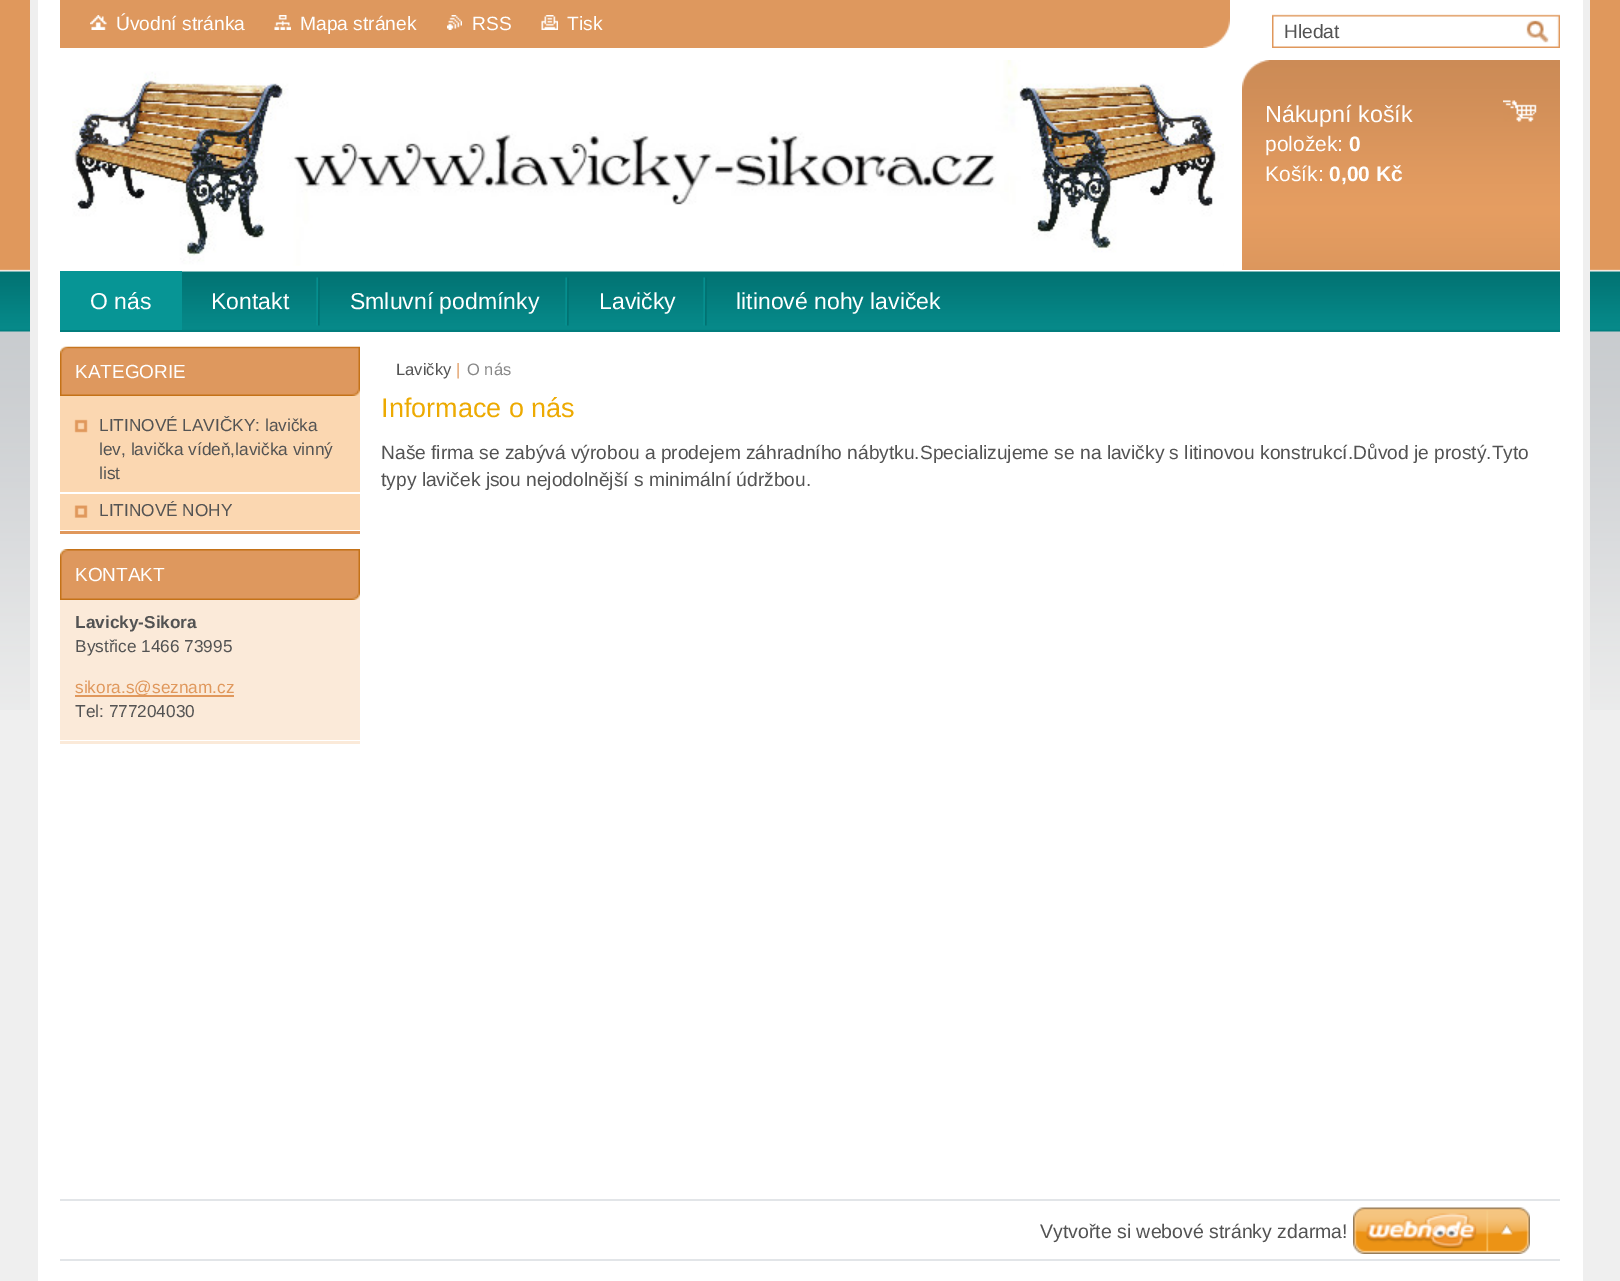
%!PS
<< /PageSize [1620 1281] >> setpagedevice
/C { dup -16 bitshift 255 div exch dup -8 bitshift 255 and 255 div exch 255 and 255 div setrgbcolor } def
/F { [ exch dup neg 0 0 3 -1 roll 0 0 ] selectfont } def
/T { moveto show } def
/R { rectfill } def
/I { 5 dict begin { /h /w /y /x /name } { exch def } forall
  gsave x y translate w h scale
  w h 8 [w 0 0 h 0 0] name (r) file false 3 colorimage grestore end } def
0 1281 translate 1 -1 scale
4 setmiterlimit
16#EFEFEF C
0 0 1620 1281 R
(1.rgb) 0 0 1620 710 I
16#FFFFFF C
38 0 1545 1281 R
16#EFEFEF C
1583 0 7 710 R
30 0 8 710 R
(2.rgb) 60 0 1170 48 I
(3.rgb) 90 15 17 15 I
/LiberationSans-Regular 19.2 F
16#FFFFFF C
(Úvodní stránka) 116 30 T
(4.rgb) 274 15 17 15 I
(Mapa stránek) 300 30 T
(5.rgb) 447 15 15 15 I
(RSS) 472 30 T
(6.rgb) 541 15 17 15 I
(Tisk) 567 30 T
(7.rgb) 1272 14 288 34 I
16#535353 C
(Hledat) 1284 38 T
(8.rgb) 1525 20 32 23 I
(9.rgb) 72 60 1152 206 I
(10.rgb) 1242 60 318 210 I
(11.rgb) 1503 100 34 22 I
/LiberationSans-Regular 23.25 F
16#FFFFFF C
(Nákupní košík) 1265 122 T
/LiberationSans-Regular 21 F
(položek:) 1265 151 T
/LiberationSans-Bold 21 F
(0) 1349 151 T
/LiberationSans-Regular 21 F
(Košík:) 1265 181 T
/LiberationSans-Bold 21 F
(0,00 Kč) 1329 181 T
16#017D7D C
60 330 1500 2 R
(12.rgb) 182 271 1378 59 I
16#079595 C
60 271 122 59 R
/LiberationSans-Regular 23 F
16#FFFFFF C
(O nás) 90 309 T
(13.rgb) 316 277 4 49 I
(Kontakt) 211 309 T
(13.rgb) 565 277 4 49 I
(Smluvní podmínky) 350 309 T
(13.rgb) 703 277 4 49 I
(Lavičky) 599 309 T
(litinové nohy laviček) 736 309 T
16#E0985C C
60 531 300 3 R
16#FBD7B1 C
60 396 300 134 R
(14.rgb) 60 346 300 50 I
(15.rgb) 61 389 299 7 I
/LiberationSans-Regular 19 F
16#FFFFFF C
(KATEGORIE) 75 378 T
(16.rgb) 74 419 14 14 I
60 492 300 2 R
/LiberationSans-Regular 17.25 F
16#535353 C
(LITINOVÉ LAVIČKY: lavička) 99 431 T
(lev, lavička vídeň,lavička vinný) 99 455 T
(list) 99 479 T
(17.rgb) 74 505 14 13 I
(LITINOVÉ NOHY) 99 516 T
16#FBEAD9 C
60 741 300 3 R
60 600 300 140 R
(18.rgb) 60 549 300 51 I
(19.rgb) 61 593 299 7 I
/LiberationSans-Regular 19 F
16#FFFFFF C
(KONTAKT) 75 581 T
/LiberationSans-Bold 17.25 F
16#535353 C
(Lavicky-Sikora) 75 628 T
/LiberationSans-Regular 17.25 F
(Bystřice 1466 73995) 75 652 T
16#E0985C C
75 695 159 2 R
(sikora.s@seznam.cz) 75 693 T
16#535353 C
(Tel: 777204030) 75 717 T
/LiberationSans-Regular 16.5 F
(Lavičky) 396 375 T
16#E0985C C
(|) 456 375 T
16#878787 C
(O nás) 467 375 T
/LiberationSans-Regular 27 F
16#EDAA01 C
(Informace o nás) 381 417 T
/LiberationSans-Regular 19.2 F
16#535353 C
(Naše firma se zabývá výrobou a prodejem záhradního nábytku.Specializujeme se na lavičky s litinovou konstrukcí.Důvod je prostý.Tyto) 381 459 T
(typy laviček jsou nejodolnější s minimální údržbou.) 381 486 T
16#E2E5E8 C
60 1199 1500 2 R
60 1259 1500 2 R
/LiberationSans-Regular 19.5 F
16#535353 C
(Vytvořte si webové stránky zdarma!) 1040 1238 T
(20.rgb) 1353 1207 177 47 I
showpage
